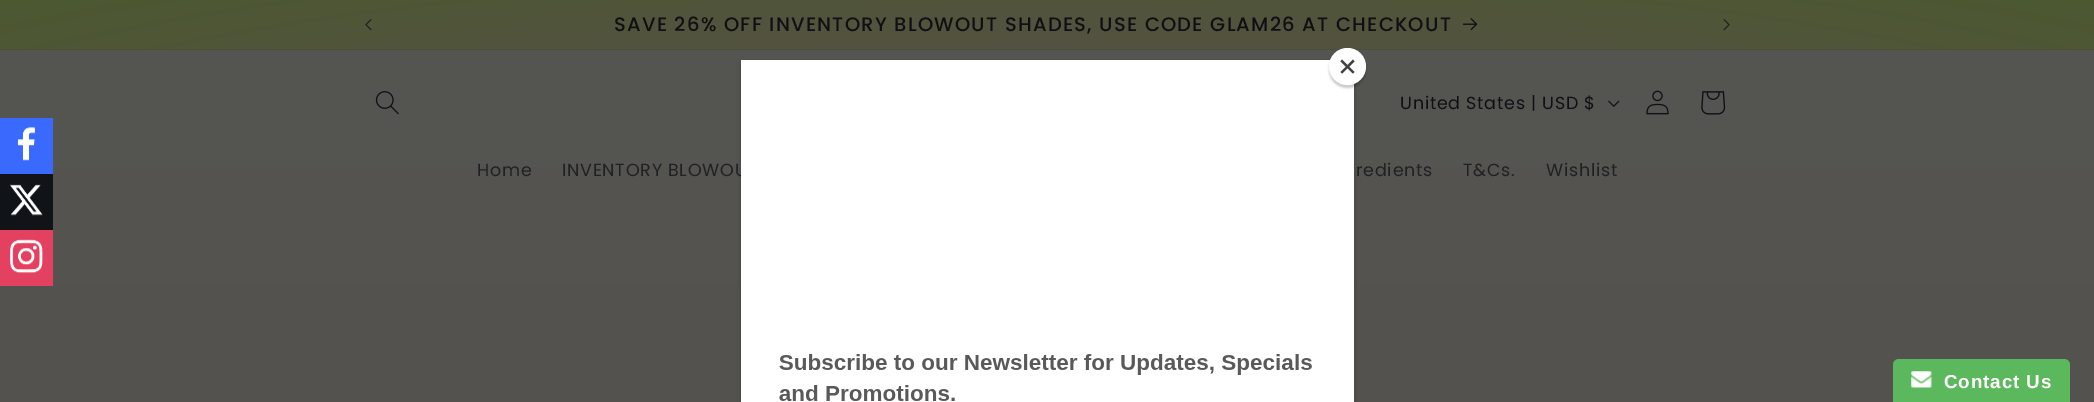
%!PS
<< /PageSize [2094 402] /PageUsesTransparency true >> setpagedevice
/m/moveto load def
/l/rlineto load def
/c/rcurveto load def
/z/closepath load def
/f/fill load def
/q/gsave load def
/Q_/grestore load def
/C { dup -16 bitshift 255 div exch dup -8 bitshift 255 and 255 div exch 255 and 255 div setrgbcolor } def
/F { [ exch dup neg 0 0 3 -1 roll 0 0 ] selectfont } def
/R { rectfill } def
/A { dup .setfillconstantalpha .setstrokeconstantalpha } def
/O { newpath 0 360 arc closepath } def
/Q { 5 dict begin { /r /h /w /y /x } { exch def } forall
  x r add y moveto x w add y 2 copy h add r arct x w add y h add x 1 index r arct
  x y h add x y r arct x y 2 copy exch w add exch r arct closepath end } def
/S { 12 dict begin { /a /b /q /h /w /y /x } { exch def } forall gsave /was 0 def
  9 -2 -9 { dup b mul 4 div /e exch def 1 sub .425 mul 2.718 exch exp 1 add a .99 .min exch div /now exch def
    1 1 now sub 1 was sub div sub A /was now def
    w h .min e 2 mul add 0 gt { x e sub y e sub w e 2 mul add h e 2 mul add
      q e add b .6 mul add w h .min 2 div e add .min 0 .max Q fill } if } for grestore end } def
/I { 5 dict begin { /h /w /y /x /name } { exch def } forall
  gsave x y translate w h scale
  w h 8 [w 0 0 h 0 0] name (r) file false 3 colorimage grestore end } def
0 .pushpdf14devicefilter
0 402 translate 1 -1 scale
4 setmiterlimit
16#FFFFFF C
0 0 2094 402 R
q 0 50 m 2094 0 l 0 352 l -2094 0 l z clip newpath
<< /ShadingType 2 /ColorSpace /DeviceRGB /Coords [1048 0 1048 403] /Extend [true true] /Function << /FunctionType 2 /Domain [0 1] /C0 [.329 .333 .325] /C1 [.329 .322 .31] /N 1 >> >> shfill Q_
q 0 0 m 2094 0 l 0 49 l -2094 0 l z clip newpath 1048 201 translate 1481 285 scale
<< /ShadingType 3 /ColorSpace /DeviceRGB /Coords [0 0 0 0 0 1] /Extend [true true] /Function << /FunctionType 3 /Domain [0 1] /Functions [<< /FunctionType 2 /Domain [0 1] /C0 [.349 .314 .314] /C1 [.349 .306 .298] /N 1 >> << /FunctionType 2 /Domain [0 1] /C0 [.349 .306 .298] /C1 [.294 .349 .188] /N 1 >>] /Bounds [.25] /Encode [0 1 0 1] >> >> shfill Q_
q 0 49 m 2094 0 l 0 1 l -2094 0 l z clip newpath 1048 201 translate 1481 285 scale
<< /ShadingType 3 /ColorSpace /DeviceRGB /Coords [0 0 0 0 0 1] /Extend [true true] /Function << /FunctionType 3 /Domain [0 1] /Functions [<< /FunctionType 2 /Domain [0 1] /C0 [.325 .294 .294] /C1 [.325 .286 .282] /N 1 >> << /FunctionType 2 /Domain [0 1] /C0 [.325 .286 .282] /C1 [.275 .325 .18] /N 1 >>] /Bounds [.25] /Encode [0 1 0 1] >> >> shfill Q_
(1.rgb) 365 19 7 12 I
/Poppins-Medium 19.5 F
16#100F14 C
614 31 m 1.25 0 (SAVE 26% OFF INVENTORY BLOWOUT SHADES, USE CODE GLAM26 AT CHECKOUT) ashow
(2.rgb) 1463 18 15 13 I
(3.rgb) 1723 19 7 12 I
16#000000 C
741 63 613 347 0 2.5 .2 S
/Poppins-Regular 17.5 F
16#212023 C
562 176 m .75 0 (INVENTORY BLOWOU) ashow
(4.rgb) 741 60 613 342 I
16#000000 C
1329 50 37 38 18.5 1 .2 S
16#FFFFFF C
1347.5 66.5 18.5 O f
16#414141 C
1353 59.5 m 1.5 2 l -12.5 12 l -1.5 -1.5 l z f
1340.5 61.5 m 1.5 -2 l 12.5 12.5 l -1.5 1.5 l z f
16#3969FD C
0 118 53 56 R
(5.rgb) 17 127 18 34 I
16#101419 C
0 174 53 56 R
(6.rgb) 10 184 33 32 I
16#E4405F C
0 230 53 56 R
(7.rgb) 10 239 33 35 I
(8.rgb) 375 91 24 24 I
16#100F14 C
1400 109 m .75 0 (United States | USD $) ashow
(9.rgb) 1608 100 12 7 I
(10.rgb) 1646 90 23 25 I
(11.rgb) 1701 91 25 24 I
16#212023 C
477 176 m .75 0 (Home) ashow
1356 176 m .75 0 (redients) ashow
1463 176 m .75 0 (T&Cs.) ashow
1546 176 m .75 0 (Wishlist) ashow
16#5CB85C C
1899 359 m 165 0 l 3.5 0 6 2.5 6 6 c 0 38 l -177 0 l 0 -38 l 0 -3.5 2.5 -6 6 -6 c z f
(12.rgb) 1911 371 21 17 I
/LiberationSans-Bold 18.75 F
16#FFFFFF C
1944 388 m .9 0 (Contact Us) ashow
.poppdf14devicefilter showpage
